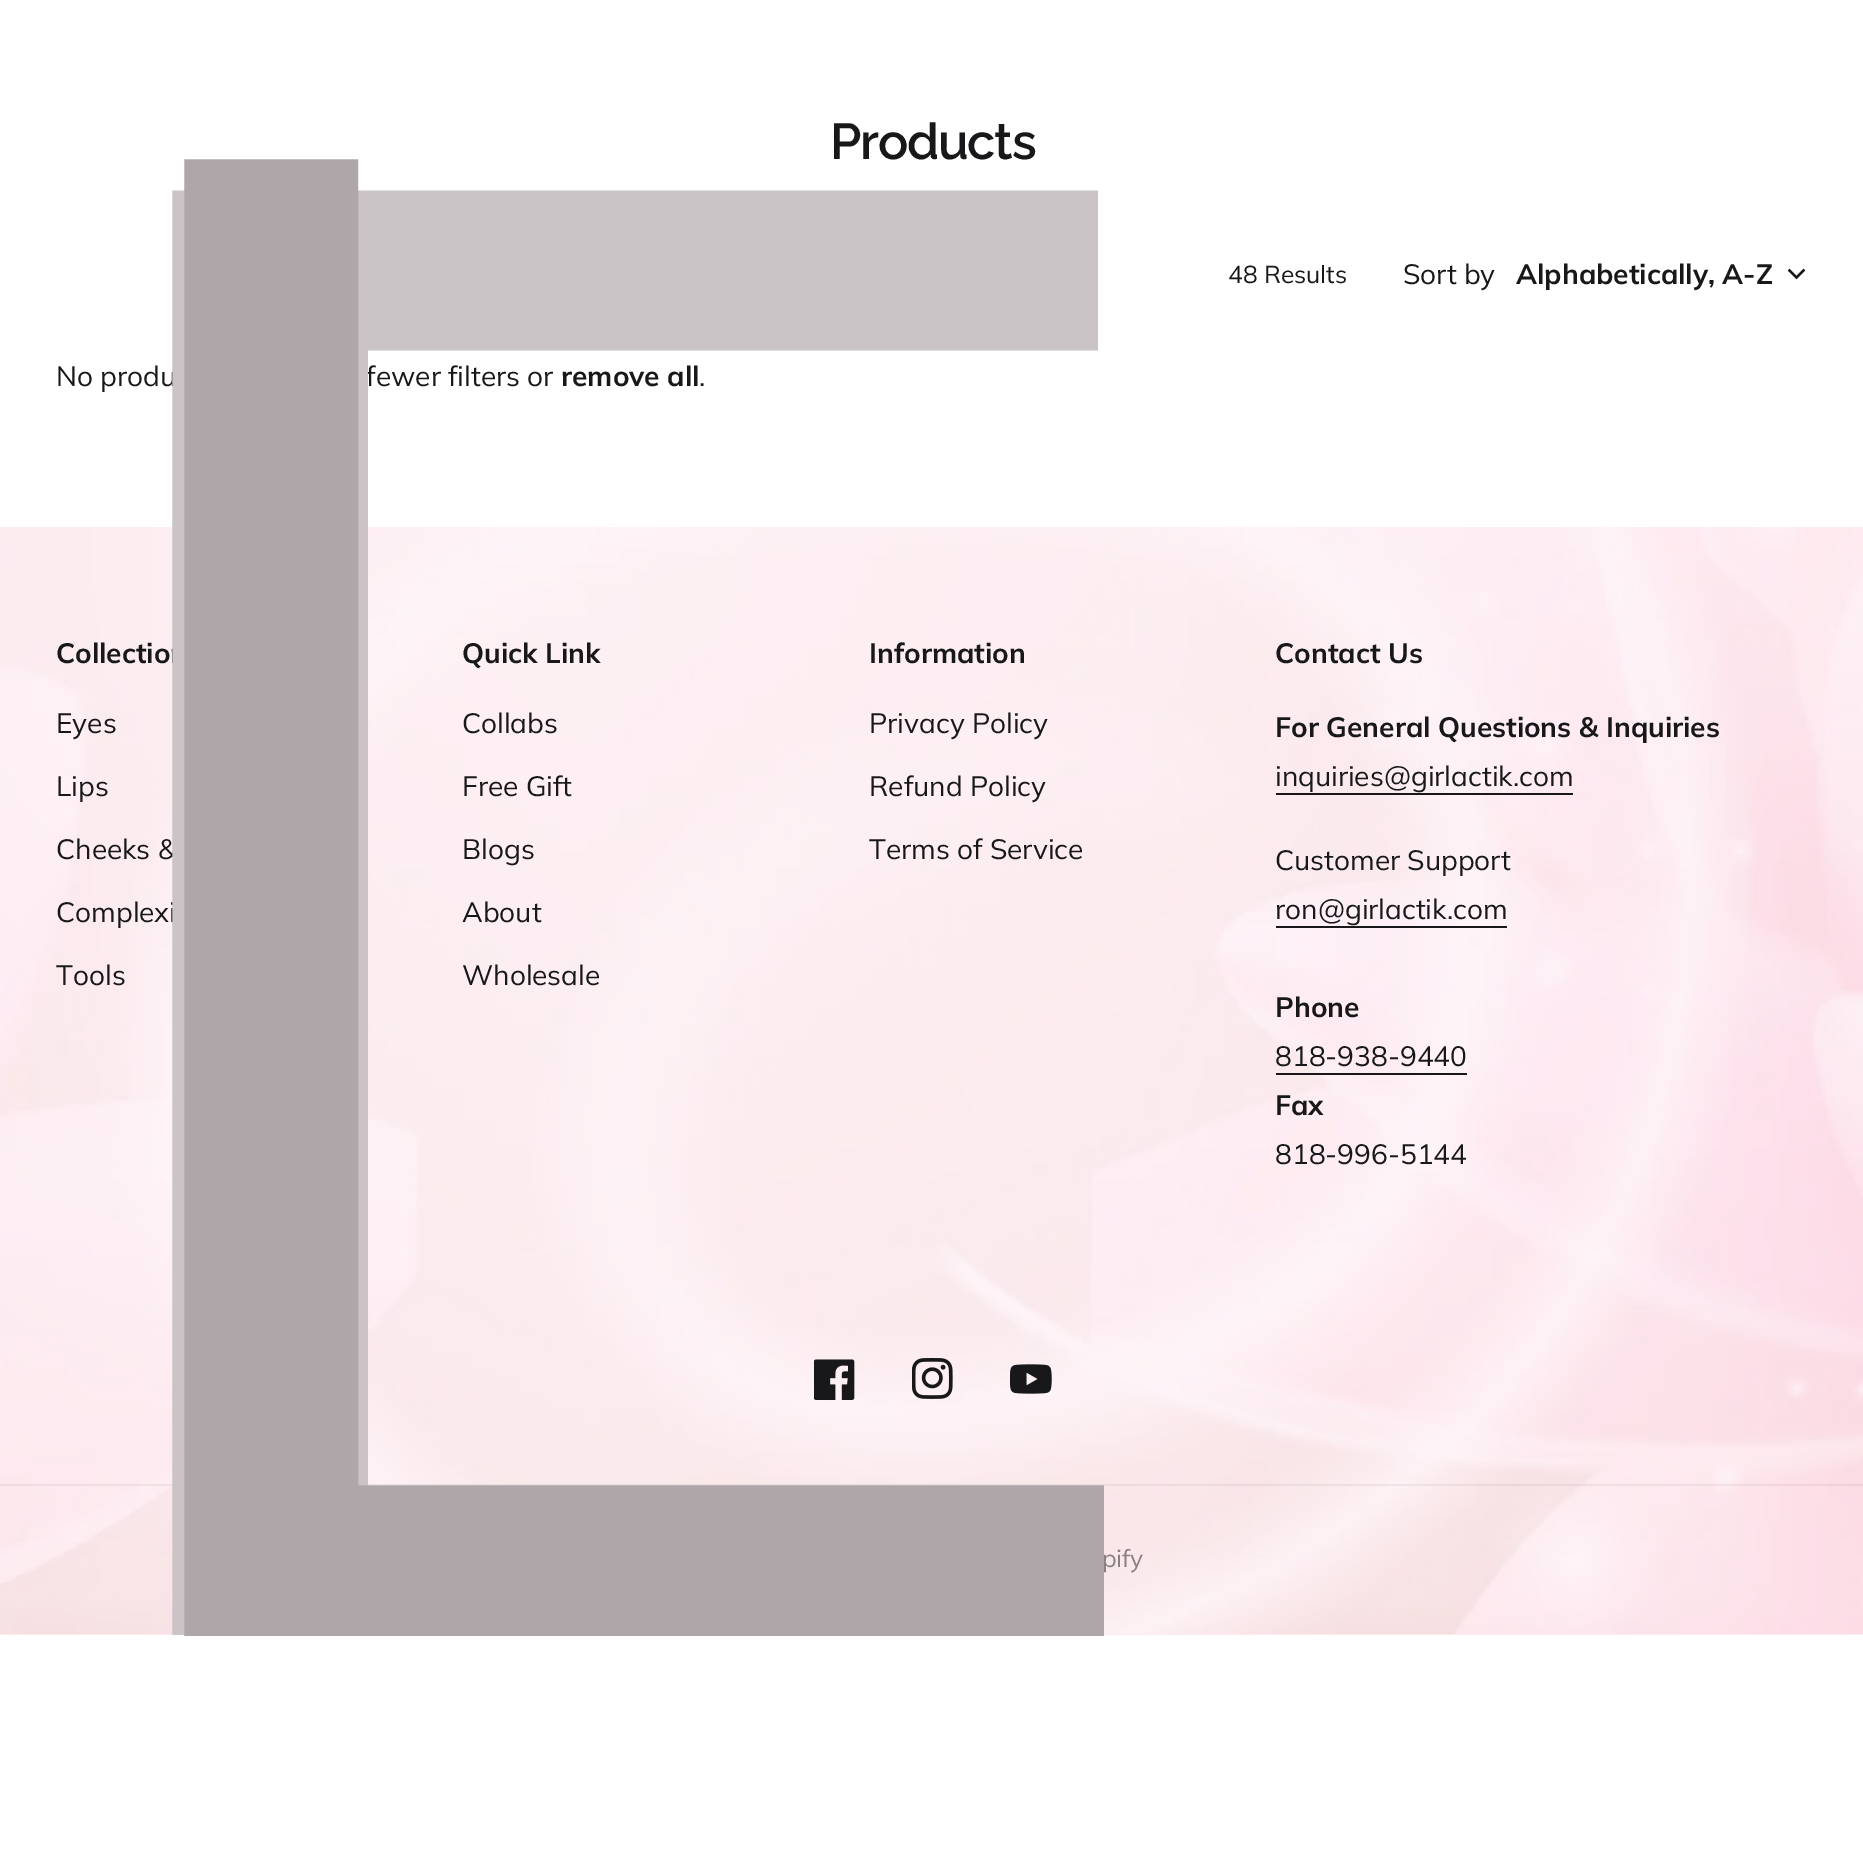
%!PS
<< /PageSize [1863 1855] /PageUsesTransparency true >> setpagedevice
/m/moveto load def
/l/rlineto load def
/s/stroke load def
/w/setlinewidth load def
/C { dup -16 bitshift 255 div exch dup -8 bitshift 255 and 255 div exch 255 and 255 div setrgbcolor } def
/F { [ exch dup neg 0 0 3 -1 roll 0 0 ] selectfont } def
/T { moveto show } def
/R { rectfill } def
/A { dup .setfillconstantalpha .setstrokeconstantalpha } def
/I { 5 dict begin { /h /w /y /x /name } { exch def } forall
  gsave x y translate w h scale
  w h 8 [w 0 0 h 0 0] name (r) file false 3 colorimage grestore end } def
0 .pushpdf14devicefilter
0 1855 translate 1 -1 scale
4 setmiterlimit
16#FFFFFF C
0 0 1863 1855 R
/Raleway-SemiBold 50.5 F
16#18181B C
830 159 m -1.25 0 (Products) ashow
/Muli-Regular 24.5 F
(48 Results) 1228 283 T
/Muli-Regular 28 F
(Sort by) 1403 284 T
/Muli-Bold 28 F
(Alphabetically, A-Z) 1516 284 T
2.4 w
2 setlinecap
1789.5 270.5 m 7 7 l 7 -7 l s
/Muli-Regular 28 F
(No products found. Use fewer filters or) 56 386 T
/Muli-Bold 28 F
(remove all) 561 386 T
/Muli-Regular 28 F
(.) 699 386 T
16#FDEAF1 C
0 527 1863 1108 R
(1.rgb) 0 527 1863 1107 I
/Muli-Bold 28 F
16#18181B C
(Collection) 56 663 T
/Muli-Regular 28 F
(Eyes) 56 733 T
(Lips) 56 796 T
(Cheeks & Glow) 56 859 T
(Complexion) 56 922 T
(Tools) 56 985 T
/Muli-Bold 28 F
(Quick Link) 462 663 T
/Muli-Regular 28 F
(Collabs) 462 733 T
(Free Gift) 462 796 T
(Blogs) 462 859 T
(About) 462 922 T
(Wholesale) 462 985 T
/Muli-Bold 28 F
(Information) 869 663 T
/Muli-Regular 28 F
(Privacy Policy) 869 733 T
(Refund Policy) 869 796 T
(Terms of Service) 869 859 T
/Muli-Bold 28 F
(Contact Us) 1275 663 T
(For General Questions & Inquiries) 1275 737 T
/Muli-Regular 28 F
(inquiries@girlactik.com) 1275 786 T
1276 793 297 2 R
(Customer Support) 1275 870 T
(ron@girlactik.com) 1275 919 T
1276 926 231 2 R
/Muli-Bold 28 F
(Phone) 1275 1017 T
/Muli-Regular 28 F
(818-938-9440) 1275 1066 T
1276 1073 191 2 R
/Muli-Bold 28 F
(Fax) 1275 1115 T
/Muli-Regular 28 F
(818-996-5144) 1275 1164 T
(2.rgb) 814 1359 41 41 I
(3.rgb) 912 1358 41 41 I
(4.rgb) 1010 1364 42 30 I
0.06 A
0 1484 1863 2 R
/Muli-Regular 24.5 F
1 A
16#898083 C
(© 2026) 720 1567 T
(Girlactik,) 812 1567 T
(Powered by Shopify) 916 1567 T
/LiberationSans-Regular 2100 F
16#CBC4C6 C
(Γ) 0 1636 T
/Muli-Regular 2100 F
16#AEA6A9 C
(L) 0 1636 T
.poppdf14devicefilter showpage
